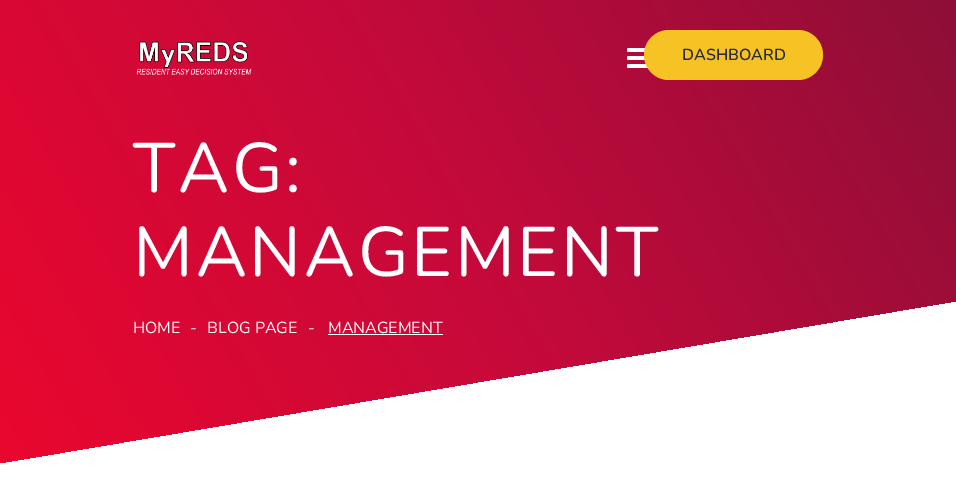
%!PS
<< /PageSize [956 487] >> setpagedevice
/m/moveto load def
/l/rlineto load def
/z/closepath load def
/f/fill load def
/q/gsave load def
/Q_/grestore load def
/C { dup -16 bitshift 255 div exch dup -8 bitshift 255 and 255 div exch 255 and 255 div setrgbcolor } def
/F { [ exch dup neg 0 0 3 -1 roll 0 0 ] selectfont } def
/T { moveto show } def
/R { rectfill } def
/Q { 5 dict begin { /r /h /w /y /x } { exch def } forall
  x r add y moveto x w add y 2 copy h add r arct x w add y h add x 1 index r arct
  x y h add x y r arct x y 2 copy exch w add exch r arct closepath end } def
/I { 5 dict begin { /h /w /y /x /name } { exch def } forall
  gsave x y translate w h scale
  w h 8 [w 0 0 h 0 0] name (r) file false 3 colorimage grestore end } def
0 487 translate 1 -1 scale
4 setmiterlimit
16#FFFFFF C
0 0 956 487 R
(3.rgb) 0 301 956 162 I
q 0 0 m 0 463 l 956 -162 l 0 -301 l z clip newpath
<< /ShadingType 2 /ColorSpace /DeviceRGB /Coords [937 -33 19 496] /Extend [true true] /Function << /FunctionType 3 /Domain [0 1] /Functions [<< /FunctionType 2 /Domain [0 1] /C0 [.553 .059 .216] /C1 [.769 .039 .231] /N 1 >> << /FunctionType 2 /Domain [0 1] /C0 [.769 .039 .231] /C1 [.918 .027 .18] /N 1 >>] /Bounds [.5] /Encode [0 1 0 1] >> >> shfill Q_
(1.rgb) 136 41 116 34 I
(2.rgb) 627 48 21 20 I
16#F7C324 C
644 30 179 50 25 Q f
/Nunito-SemiBold 16 F
16#2A2D3B C
(DASHBOARD) 682 60 T
/Nunito-Regular 70 F
16#FFFFFF C
133 192 m 2.75 0 (TAG:) ashow
133 276 m 2.75 0 (MANAGEMENT) ashow
/Nunito-Regular 16 F
(HOME) 133 333 T
(-) 190 333 T
(BLOG PAGE) 207 333 T
(-) 308 333 T
(MANAGEMENT) 328 333 T
328 334 115 1 R
showpage
